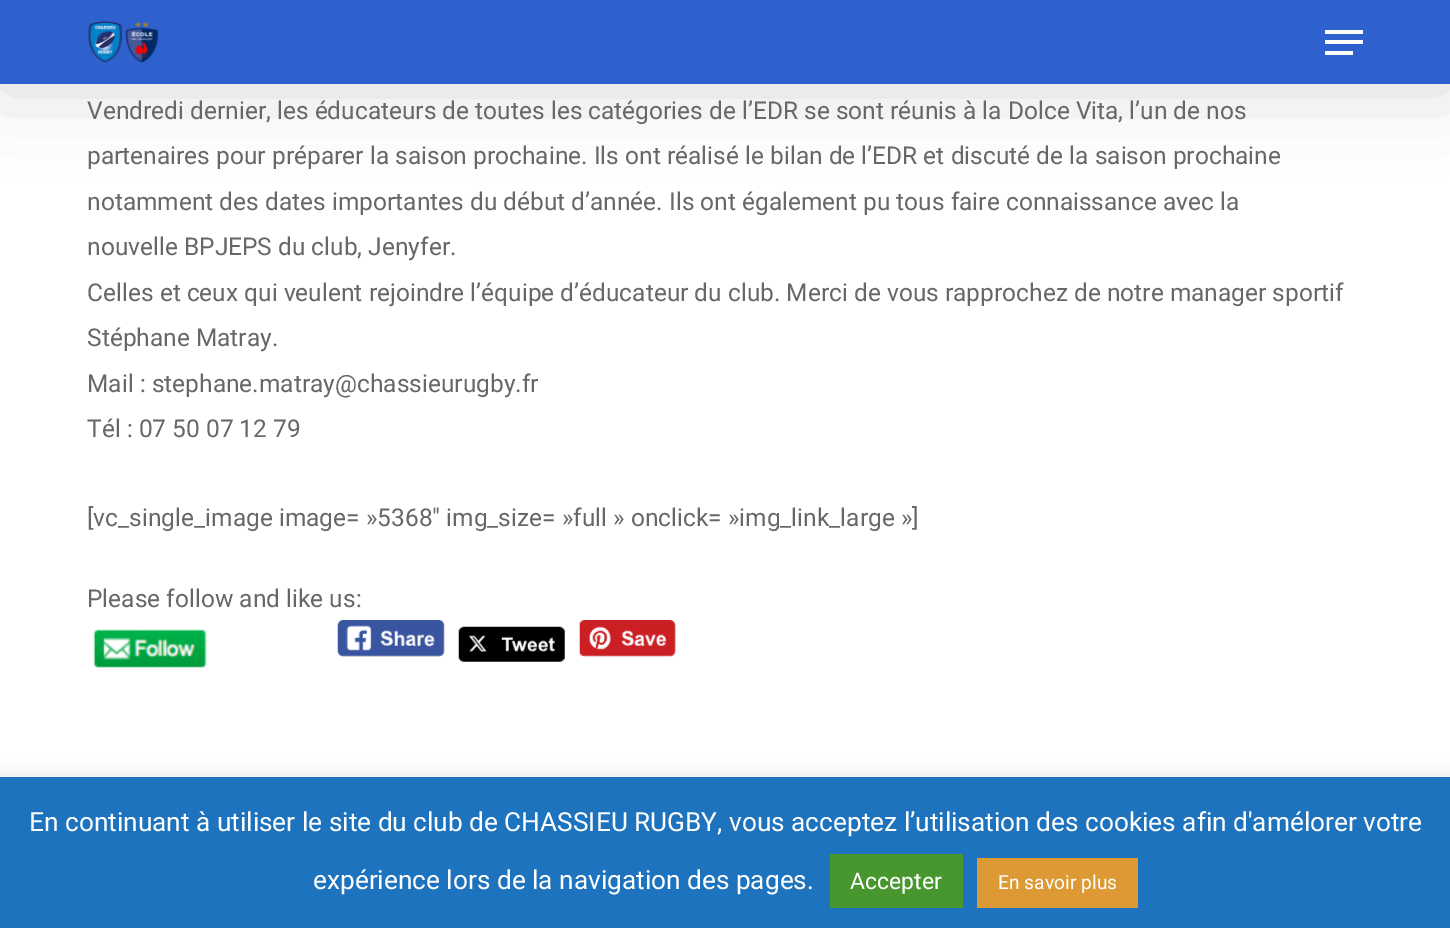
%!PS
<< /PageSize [1450 928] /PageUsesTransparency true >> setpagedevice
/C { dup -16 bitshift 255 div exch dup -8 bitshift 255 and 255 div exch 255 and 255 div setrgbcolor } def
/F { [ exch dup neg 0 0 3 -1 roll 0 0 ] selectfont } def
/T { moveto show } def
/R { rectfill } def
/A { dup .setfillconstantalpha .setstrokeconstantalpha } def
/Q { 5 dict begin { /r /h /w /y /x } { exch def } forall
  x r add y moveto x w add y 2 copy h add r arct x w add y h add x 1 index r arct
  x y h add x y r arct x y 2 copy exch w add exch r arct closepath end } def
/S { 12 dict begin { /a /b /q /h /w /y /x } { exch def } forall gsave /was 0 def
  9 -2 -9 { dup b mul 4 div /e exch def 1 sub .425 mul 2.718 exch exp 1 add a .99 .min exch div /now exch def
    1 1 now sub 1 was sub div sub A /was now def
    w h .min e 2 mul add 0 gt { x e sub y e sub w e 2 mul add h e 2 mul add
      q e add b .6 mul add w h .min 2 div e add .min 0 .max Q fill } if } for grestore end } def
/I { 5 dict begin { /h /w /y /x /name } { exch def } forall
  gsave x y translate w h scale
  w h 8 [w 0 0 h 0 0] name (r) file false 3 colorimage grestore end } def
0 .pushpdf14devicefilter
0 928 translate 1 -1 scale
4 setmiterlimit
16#FFFFFF C
0 0 1450 928 R
16#000000 C
0 -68 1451 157 0 39.5 .15 S
16#2F61CE C
0 0 1450 84 R
(1.rgb) 87 21 72 42 I
16#FFFFFF C
1325 30 38 4 R
1325 51 28 4 R
1325 40 38 4 R
/Roboto-Regular 24.5 F
16#676767 C
(Vendredi dernier, les éducateurs de toutes les catégories de l’EDR se sont réunis à la Dolce Vita, l’un de nos) 87 119 T
(partenaires pour préparer la saison prochaine. Ils ont réalisé le bilan de l’EDR et discuté de la saison prochaine) 87 164 T
(notamment des dates importantes du début d’année. Ils ont également pu tous faire connaissance avec la) 87 210 T
(nouvelle BPJEPS du club, Jenyfer.) 87 255 T
(Celles et ceux qui veulent rejoindre l’équipe d’éducateur du club. Merci de vous rapprochez de notre manager sportif) 87 301 T
(Stéphane Matray.) 87 346 T
(Mail : stephane.matray@chassieurugby.fr) 87 392 T
(Tél : 07 50 07 12 79) 87 437 T
([vc_single_image image= »5368″ img_size= »full » onclick= »img_link_large »]) 87 526 T
(Please follow and like us:) 87 607 T
(2.rgb) 93 629 114 39 I
(3.rgb) 337 620 108 37 I
(4.rgb) 458 626 107 36 I
(5.rgb) 579 620 97 37 I
16#ACABAB C
0 775 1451 153 0 9 .3 S
16#1E73BE C
0 777 1450 151 R
/Roboto-Regular 26.25 F
16#FFFFFF C
(En continuant à utiliser le site du club de CHASSIEU RUGBY, vous acceptez l’utilisation des cookies afin d'amélorer votre) 29 831 T
(expérience lors de la navigation des pages.) 313 889 T
16#48962E C
830 854 133 54 R
/Roboto-Regular 23 F
16#FFFFFF C
(Accepter) 850 889 T
16#DD9933 C
977 858 161 50 R
/Roboto-Regular 19.25 F
16#FFFFFF C
(En savoir plus) 998 889 T
.poppdf14devicefilter showpage
